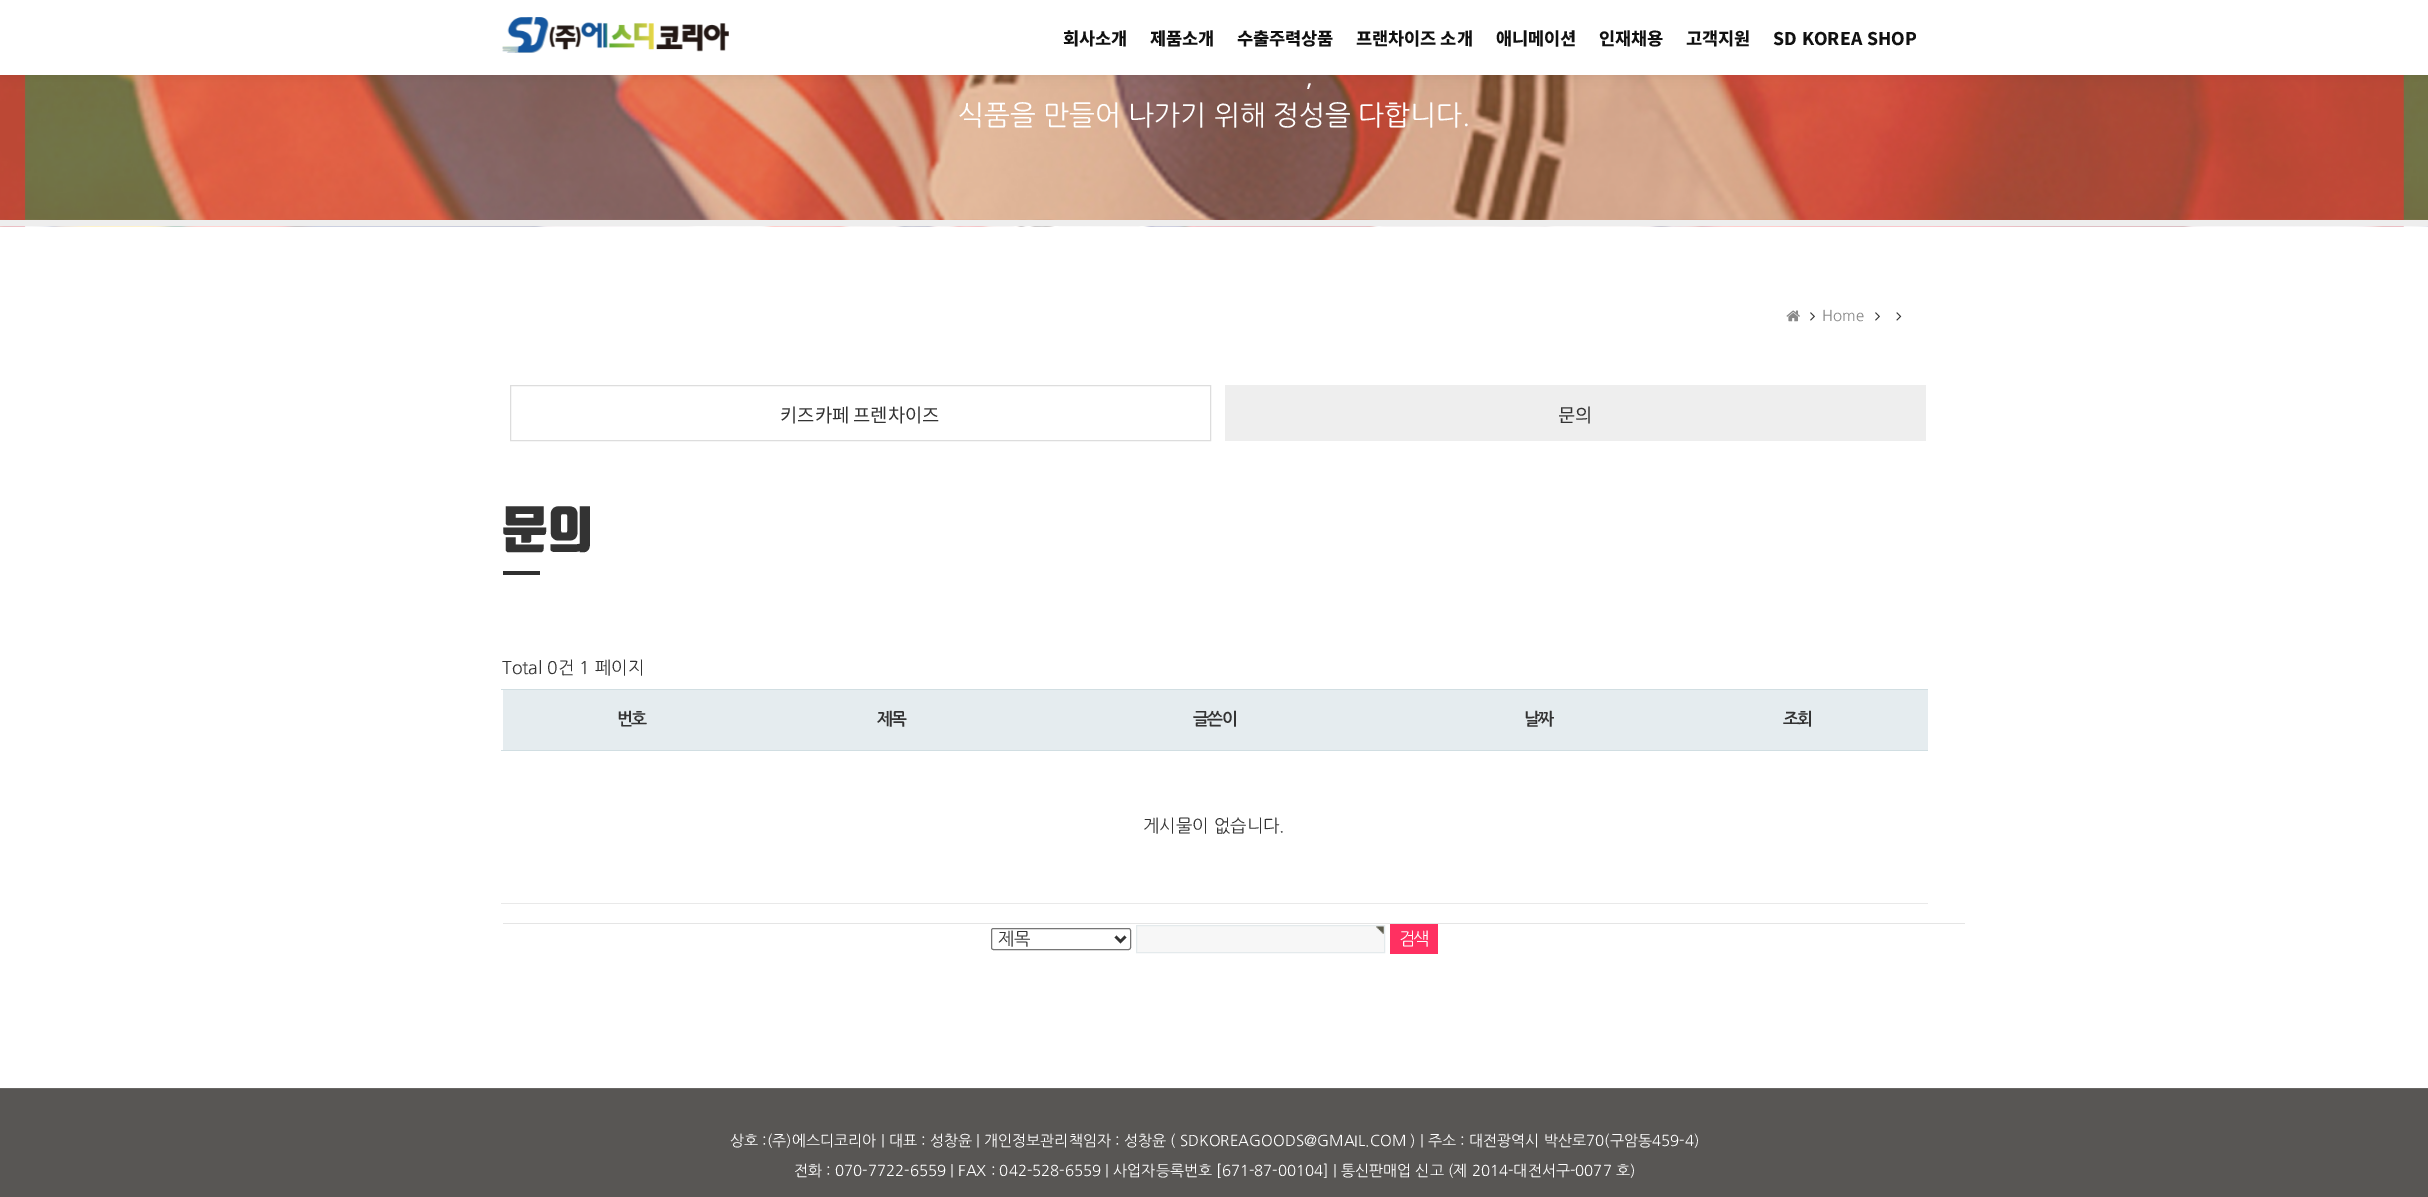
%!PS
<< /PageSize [2428 1197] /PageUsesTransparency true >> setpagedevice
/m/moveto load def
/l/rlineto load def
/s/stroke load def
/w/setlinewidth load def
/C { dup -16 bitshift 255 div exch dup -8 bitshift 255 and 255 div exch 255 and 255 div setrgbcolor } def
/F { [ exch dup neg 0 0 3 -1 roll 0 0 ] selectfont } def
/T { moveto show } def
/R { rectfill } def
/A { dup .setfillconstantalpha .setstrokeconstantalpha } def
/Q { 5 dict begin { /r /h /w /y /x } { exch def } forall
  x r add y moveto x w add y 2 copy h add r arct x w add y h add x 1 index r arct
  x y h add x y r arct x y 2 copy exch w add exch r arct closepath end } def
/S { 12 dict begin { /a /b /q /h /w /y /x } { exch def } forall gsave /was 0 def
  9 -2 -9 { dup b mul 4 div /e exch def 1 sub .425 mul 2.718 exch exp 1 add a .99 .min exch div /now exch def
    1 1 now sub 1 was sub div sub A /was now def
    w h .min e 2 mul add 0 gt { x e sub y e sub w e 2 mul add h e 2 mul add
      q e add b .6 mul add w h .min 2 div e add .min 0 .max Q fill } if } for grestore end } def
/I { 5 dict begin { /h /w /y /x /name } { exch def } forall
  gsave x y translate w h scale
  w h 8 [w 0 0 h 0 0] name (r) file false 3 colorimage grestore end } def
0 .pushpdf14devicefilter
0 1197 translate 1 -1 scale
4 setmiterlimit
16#FFFFFF C
0 0 2428 1197 R
(2.rgb) 0 75 2428 152 I
16#000000 C
0 0 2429 75 0 6 .1 S
16#FFFFFF C
0 0 2428 75 R
(1.rgb) 502 17 227 36 I
/NotoSansKR-ExtraBold 17.5 F
16#111111 C
(회사소개) 1063 45 T
(제품소개) 1150 45 T
(수출주력상품) 1237 45 T
(프랜차이즈 소개) 1356 45 T
(애니메이션) 1496 45 T
(인재채용) 1599 45 T
(고객지원) 1686 45 T
1773 45 m 1 0 32 (SD KOREA SHOP) widthshow
16#EEEEEE C
0 220 2428 6 R
/NanumGothic-Regular 27.5 F
16#FFFFFF C
(,) 1305 85 T
(식품을 만들어 나가기 위해 정성을 다합니다.) 958 125 T
(3.rgb) 1786 310 14 12 I
(4.rgb) 1810 312 5 9 I
/NanumGothic-Regular 15 F
16#888888 C
(Home) 1822 321 T
(4.rgb) 1875 312 5 9 I
(5.rgb) 1896 312 6 9 I
16#DDDDDD C
510.5 385.5 700 55 rectstroke
/NotoSansKR-Regular 18.75 F
16#333333 C
(키즈카페 프렌차이즈) 780 422 T
16#EEEEEE C
1225 385 701 56 R
16#333333 C
(문의) 1558 422 T
/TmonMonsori-Black 50 F
502 544 m 1 0 (문의) ashow
16#303030 C
503 571 37 4 R
/NanumGothic-Regular 17.5 F
16#333333 C
(Total 0건 1 페이지) 502 674 T
16#E5ECEF C
503 690 1425 60 R
/NanumGothic-Bold 17 F
16#333333 C
617 725 m -1.5 0 (번호) ashow
877 725 m -1.5 0 (제목) ashow
1193 725 m -1.5 0 (글쓴이) ashow
1524 725 m -1.5 0 (날짜) ashow
16#D1DEE2 C
501 689 1427 1 R
501 750 1427 1 R
16#333333 C
1783 725 m -1.5 0 (조회) ashow
16#E9E9E9 C
501 903 1427 1 R
/NanumGothic-Regular 17.5 F
16#333333 C
(게시물이 없습니다.) 1143 832 T
16#E5E5E5 C
503 923 1462 1 R
16#767676 C
991.5 928.5 139 21 2 Q s
16#333333 C
2.5 w
1115.5 936.5 m 5 5 l 5 -5 l s
(제목) 998 945 T
16#F7F7F7 C
1137 926 247 26 R
(6.rgb) 1376 926 8 8 I
16#E4EAEC C
1 w
1136.5 925.5 248 27 rectstroke
16#FF3061 C
1390 924 48 30 R
16#FFFFFF C
1399 945 m -2 0 (검색) ashow
16#585654 C
0 1089 2428 108 R
16#696765 C
0 1088 2428 1 R
/NanumGothic-Regular 15 F
16#FFFFFF C
(상호 :\(주\)에스디코리아 | 대표 : 성창윤 | 개인정보관리책임자 : 성창윤 \( SDKOREAGOODS@GMAIL.COM \) | 주소 : 대전광역시 박산로70\(구암동459-4\)) 730 1146 T
(전화 : 070-7722-6559 | FAX : 042-528-6559 | 사업자등록번호 [671-87-00104] | 통신판매업 신고 \(제 2014-대전서구-0077 호\)) 794 1176 T
.poppdf14devicefilter showpage
